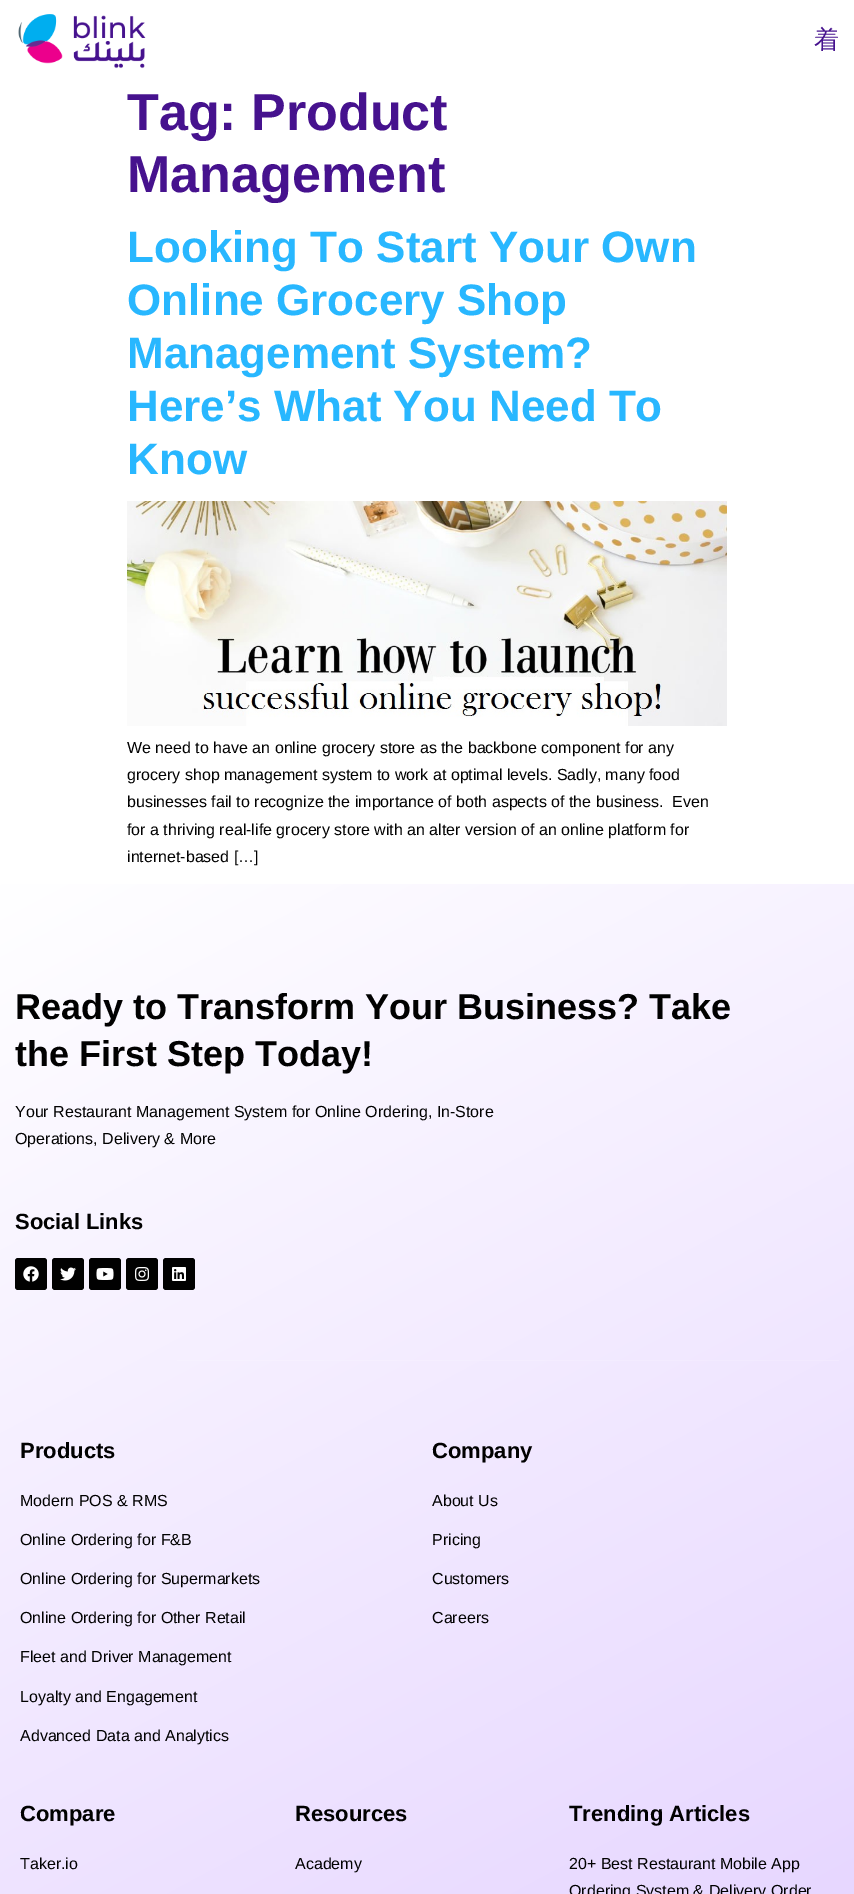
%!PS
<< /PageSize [854 1894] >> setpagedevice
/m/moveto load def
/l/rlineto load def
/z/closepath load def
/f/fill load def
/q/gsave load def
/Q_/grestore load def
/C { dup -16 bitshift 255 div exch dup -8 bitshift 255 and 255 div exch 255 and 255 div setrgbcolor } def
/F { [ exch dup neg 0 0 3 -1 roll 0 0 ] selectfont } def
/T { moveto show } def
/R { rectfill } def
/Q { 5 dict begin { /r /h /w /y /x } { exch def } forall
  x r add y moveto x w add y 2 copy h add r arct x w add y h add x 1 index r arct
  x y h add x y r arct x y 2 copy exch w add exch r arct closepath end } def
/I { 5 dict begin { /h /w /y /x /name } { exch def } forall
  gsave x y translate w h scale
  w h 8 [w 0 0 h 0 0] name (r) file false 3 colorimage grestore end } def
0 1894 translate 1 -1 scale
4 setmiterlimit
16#FFFFFF C
0 0 854 1894 R
(1.rgb) 18 14 128 55 I
/WenQuanYiZenHei-Medium 25 F
16#46128E C
(着) 814 48 T
/LiberationSans-Bold 52 F
(Tag: Product) 127 130 T
(Management) 127 192 T
/LiberationSans-Bold 44 F
16#28B7FF C
(Looking To Start Your Own) 127 262 T
(Online Grocery Shop) 127 315 T
(Management System?) 127 368 T
(Here’s What You Need To) 127 421 T
(Know) 127 474 T
(2.rgb) 127 501 600 225 I
/LiberationSans-Regular 16 F
16#010101 C
(We need to have an online grocery store as the backbone component for any) 127 753 T
(grocery shop management system to work at optimal levels. Sadly, many food) 127 780 T
(businesses fail to recognize the importance of both aspects of the business.  Even) 127 807 T
(for a thriving real-life grocery store with an alter version of an online platform for) 127 835 T
(internet-based […]) 127 862 T
q 0 884 m 854 0 l 0 1010 l -854 0 l z clip newpath
<< /ShadingType 2 /ColorSpace /DeviceRGB /Coords [-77 925 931 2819] /Extend [true true] /Function << /FunctionType 2 /Domain [0 1] /C0 [1 1 1] /C1 [.847 .741 1] /N 1 >> >> shfill Q_
q 177 1360 m 662 0 l 0 1 l -662 0 l z clip newpath
<< /ShadingType 2 /ColorSpace /DeviceRGB /Coords [-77 925 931 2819] /Extend [true true] /Function << /FunctionType 2 /Domain [0 1] /C0 [1 1 1] /C1 [.867 .776 1] /N 1 >> >> shfill Q_
/LiberationSans-Bold 36 F
(Ready to Transform Your Business? Take) 15 1019 T
(the First Step Today!) 15 1066 T
/LiberationSans-Regular 16 F
(Your Restaurant Management System for Online Ordering, In-Store) 15 1117 T
(Operations, Delivery & More) 15 1144 T
/LiberationSans-Bold 22 F
(Social Links) 15 1229 T
15 1258 32 32 3 Q f
(3.rgb) 23 1266 16 16 I
52 1258 32 32 3 Q f
(4.rgb) 60 1267 16 14 I
89 1258 32 32 3 Q f
(5.rgb) 96 1268 18 12 I
126 1258 32 32 3 Q f
(6.rgb) 135 1267 14 14 I
163 1258 32 32 3 Q f
(7.rgb) 172 1267 14 14 I
(Products) 20 1458 T
/LiberationSans-Regular 16 F
(Modern POS & RMS) 20 1506 T
(Online Ordering for F&B) 20 1545 T
(Online Ordering for Supermarkets) 20 1584 T
(Online Ordering for Other Retail) 20 1623 T
(Fleet and Driver Management) 20 1662 T
(Loyalty and Engagement) 20 1702 T
(Advanced Data and Analytics) 20 1741 T
/LiberationSans-Bold 22 F
(Company) 432 1458 T
/LiberationSans-Regular 16 F
(About Us) 432 1506 T
(Pricing) 432 1545 T
(Customers) 432 1584 T
(Careers) 432 1623 T
/LiberationSans-Bold 22 F
(Compare) 20 1821 T
/LiberationSans-Regular 16 F
(Taker.io) 20 1869 T
/LiberationSans-Bold 22 F
(Resources) 295 1821 T
/LiberationSans-Regular 16 F
(Academy) 295 1869 T
/LiberationSans-Bold 22 F
(Trending Articles) 569 1821 T
/LiberationSans-Regular 16 F
(20+ Best Restaurant Mobile App) 569 1869 T
(Ordering System & Delivery Order) 569 1896 T
showpage
